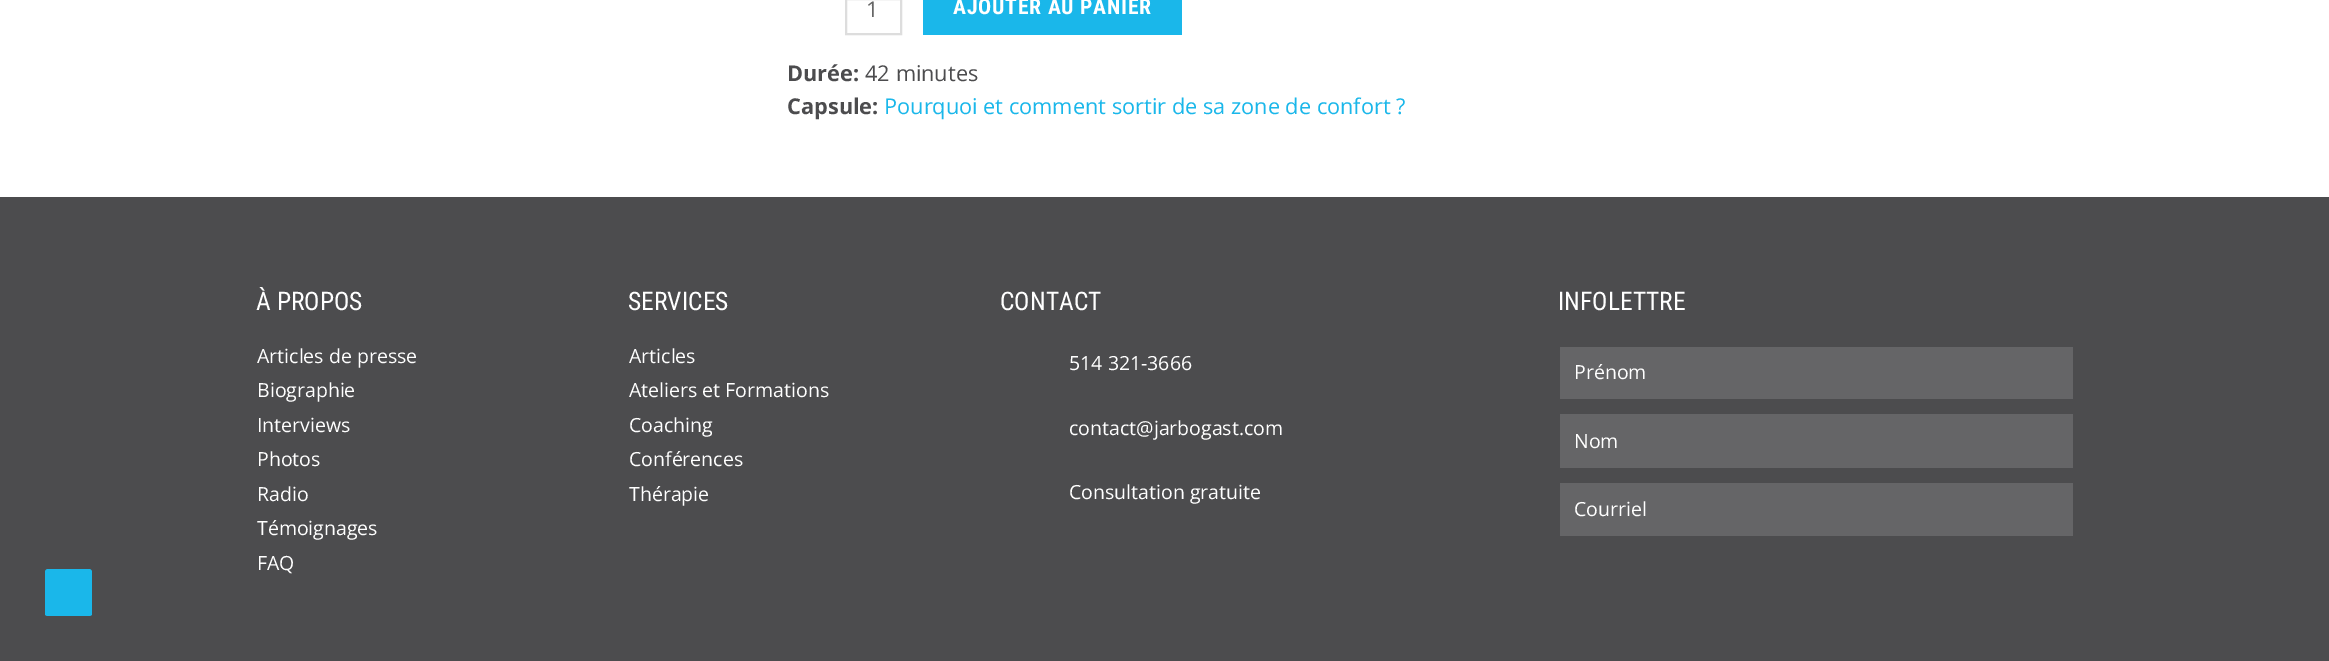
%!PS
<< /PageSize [2329 661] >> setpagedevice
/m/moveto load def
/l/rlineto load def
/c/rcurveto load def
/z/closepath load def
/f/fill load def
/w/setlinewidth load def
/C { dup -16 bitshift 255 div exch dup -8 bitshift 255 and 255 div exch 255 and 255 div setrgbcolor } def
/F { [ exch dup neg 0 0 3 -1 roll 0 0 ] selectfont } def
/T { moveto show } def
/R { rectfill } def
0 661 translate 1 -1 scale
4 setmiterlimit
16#FFFFFF C
0 0 2329 661 R
16#DDDDDD C
2 w
846 -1 55 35 rectstroke
/OpenSans-Regular 21.75 F
16#666666 C
(1) 866 17 T
16#1AB7EA C
923 0 259 35 R
/RobotoCondensed-Bold 21.75 F
16#FFFFFF C
953 14 m .75 0 (AJOUTER AU PANIER) ashow
/OpenSans-Bold 21.75 F
16#4C4C4E C
(Durée:) 787 81 T
/OpenSans-Regular 21.75 F
(42 minutes) 865 81 T
/OpenSans-Bold 21.75 F
(Capsule:) 787 114 T
/OpenSans-Regular 21.75 F
16#1AB7EA C
(Pourquoi et comment sortir de sa zone de confort ?) 884 114 T
16#4C4C4E C
0 197 2329 464 R
/RobotoCondensed-Regular 25.5 F
16#FFFFFF C
(À PROPOS) 256 310 T
/OpenSans-Regular 19.5 F
(Articles de presse) 257 363 T
(Biographie) 257 397 T
(Interviews) 257 432 T
(Photos) 257 466 T
(Radio) 257 501 T
(Témoignages) 257 535 T
(FAQ) 257 570 T
/RobotoCondensed-Regular 25.5 F
(SERVICES) 628 310 T
/OpenSans-Regular 19.5 F
(Articles) 629 363 T
(Ateliers et Formations) 629 397 T
(Coaching) 629 432 T
(Conférences) 629 466 T
(Thérapie) 629 501 T
/RobotoCondensed-Regular 25.5 F
(CONTACT) 1000 310 T
/OpenSans-Regular 19.5 F
(514 321-3666) 1069 370 T
(contact@jarbogast.com) 1069 435 T
(Consultation gratuite) 1069 499 T
/RobotoCondensed-Regular 25.5 F
(INFOLETTRE) 1558 310 T
16#656567 C
1560 347 513 52 R
/OpenSans-Regular 19.5 F
16#FFFFFF C
(Prénom) 1574 379 T
16#656567 C
1560 414 513 54 R
16#FFFFFF C
(Nom) 1574 448 T
16#656567 C
1560 483 513 53 R
16#FFFFFF C
(Courriel) 1574 516 T
16#1AB7EA C
89 616 m -41 0 l -2 0 -3 -1 -3 -2 c 0 -42 l 0 -1 1 -3 3 -3 c 41 0 l 2 0 3 2 3 3 c 0 42 l 0 1 -1 2 -3 2 c z f
showpage
